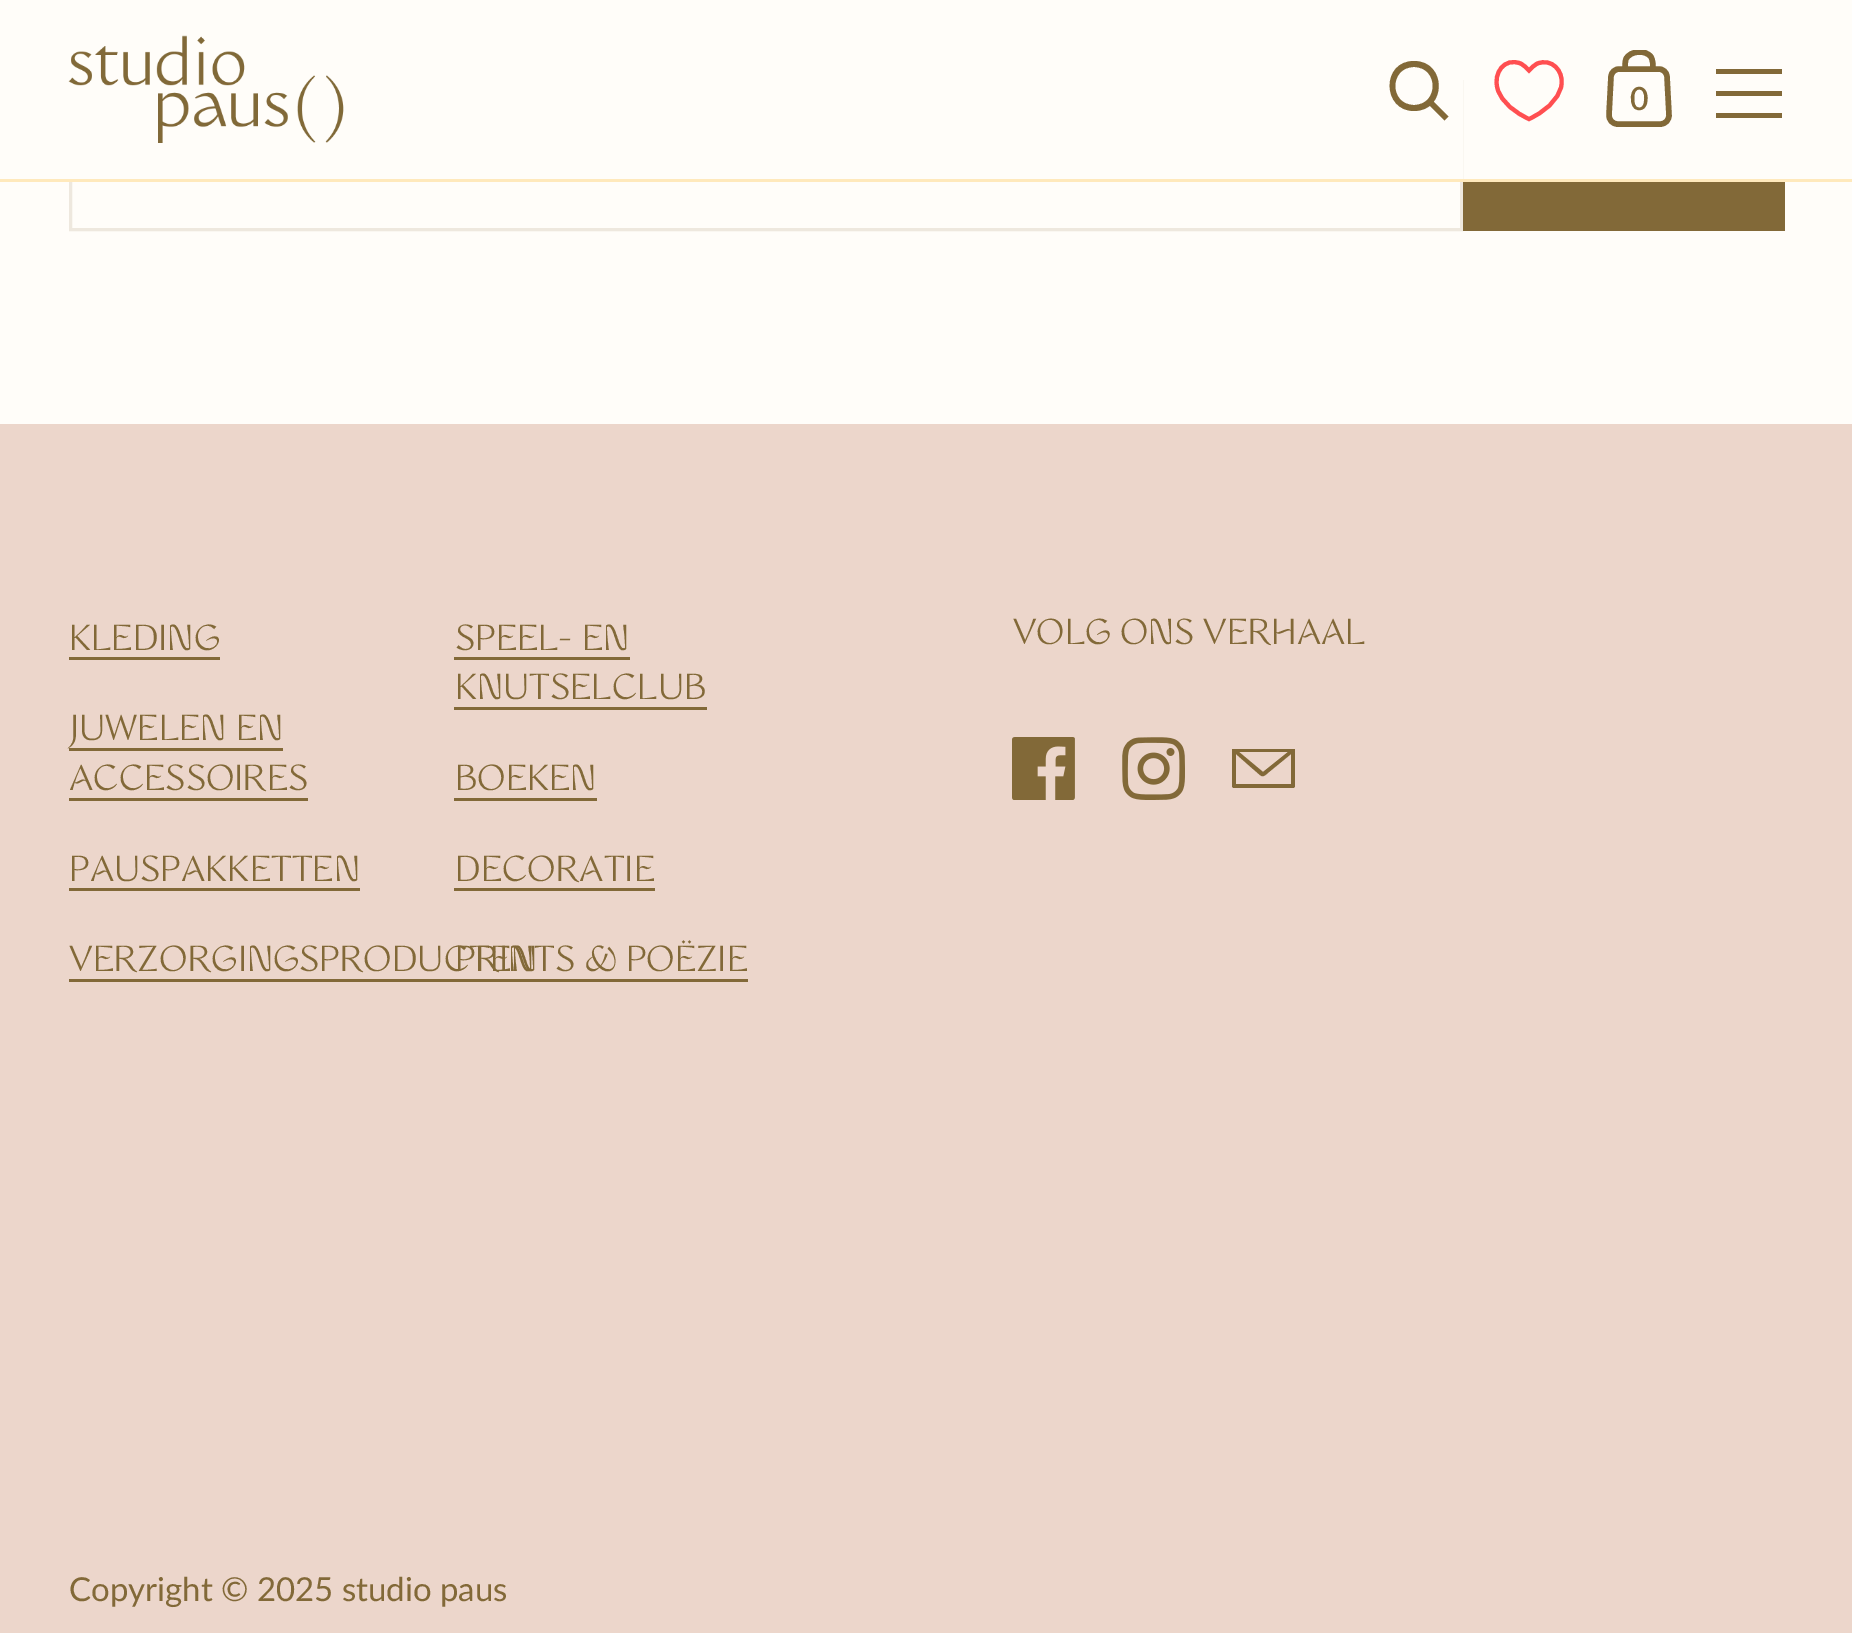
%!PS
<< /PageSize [1852 1633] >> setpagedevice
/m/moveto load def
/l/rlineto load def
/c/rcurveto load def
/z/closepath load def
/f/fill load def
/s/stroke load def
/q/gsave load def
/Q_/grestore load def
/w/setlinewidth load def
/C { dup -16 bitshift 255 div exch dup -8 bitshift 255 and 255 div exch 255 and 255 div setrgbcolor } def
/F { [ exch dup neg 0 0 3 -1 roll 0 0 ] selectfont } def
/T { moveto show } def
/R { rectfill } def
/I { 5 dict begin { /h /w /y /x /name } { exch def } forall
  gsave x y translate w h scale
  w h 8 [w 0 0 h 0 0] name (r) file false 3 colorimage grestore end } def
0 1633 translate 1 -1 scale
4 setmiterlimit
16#FFFDF9 C
0 0 1852 1633 R
16#EEE8DE C
3 w
70.5 81.5 1391 148 rectstroke
16#FFE9BC C
0 179 1852 3 R
16#FFFDF9 C
69 80 1394 99 R
(1.rgb) 68 35 276 108 I
16#826938 C
1414 111 m -32 0 -33 -50 0 -50 c 33 0 33 50 0 50 c z 1414 67 m -25 0 -25 38 0 38 c 25 0 25 -38 0 -38 c z f
1429 105 m 4 -4 l 15.5 15.5 l -4 4 l z f
16#FF4F51 C
4.1 w
1529 119 m -13 -6 -27.5 -16 -31.5 -30.5 c -4.5 -15.5 7 -31.5 23 -25 c 3.5 1.5 6 4.5 8.5 7 c 2.5 -2.5 5 -5.5 8.5 -7 c 14 -5.5 26 7 24 21 c -2.5 16.5 -18.5 28 -32.5 34.5 c z s
q
1606 50 66 77 rectclip
16#826938 C
5.5 w
1625 69 m -5.5 0 l -4.5 0 -8 3 -8.5 7.5 c -2 38.5 l 0 5 3.5 9 8.5 9 c 43 0 l 5 0 8.5 -4 8.5 -9 c -2 -38.5 l -.5 -4.5 -4 -7.5 -8.5 -7.5 c -5.5 0 l 1625 69 m 0 -3.5 0 -7 1 -10 c 4 -8.5 20 -9.5 25 -2 c 2 3.5 2 8 2 12 c 1625 69 m 28 0 l s
Q_
/Lato-SemiBold 32 F
16#826938 C
(0) 1630 110 T
1716 69 66 5 R
1716 91 66 5 R
1716 113 66 5 R
1463 182 322 49 R
16#ECD6CB C
0 424 1852 1209 R
/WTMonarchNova-Regular 33 F
16#826938 C
(KLEDING) 69 650 T
69 657 151 3 R
69 748 214 3 R
(JUWELEN EN) 69 740 T
(ACCESSOIRES) 69 790 T
69 798 239 3 R
(PAUSPAKKETTEN) 69 881 T
69 888 291 3 R
(VERZORGINGSPRODUCTEN) 69 971 T
69 979 679 3 R
(SPEEL- EN) 455 650 T
454 657 176 3 R
(KNUTSELCLUB) 455 699 T
454 707 253 3 R
(BOEKEN) 455 790 T
454 798 143 3 R
(DECORATIE) 455 881 T
454 888 201 3 R
(PRINTS & POËZIE) 455 971 T
/WTMonarchNova-Regular 32.75 F
(VOLG ONS VERHAAL) 1013 644 T
(2.rgb) 1012 737 63 63 I
(3.rgb) 1122 737 63 63 I
1295 750 m 0 -1 l -63 0 l 0 37 l 0 1 1 2 2 2 c 59 0 l 1 0 2 -1 2 -2 c z 1288 752 m -25 20 l -24 -20 l z 1236 784 m 0 -30 l 17 15 l 10 8 8 10 16 3 c 22 -18 l 0 30 l z f
/Lato-Regular 33 F
(Copyright © 2025 studio paus) 69 1601 T
showpage
